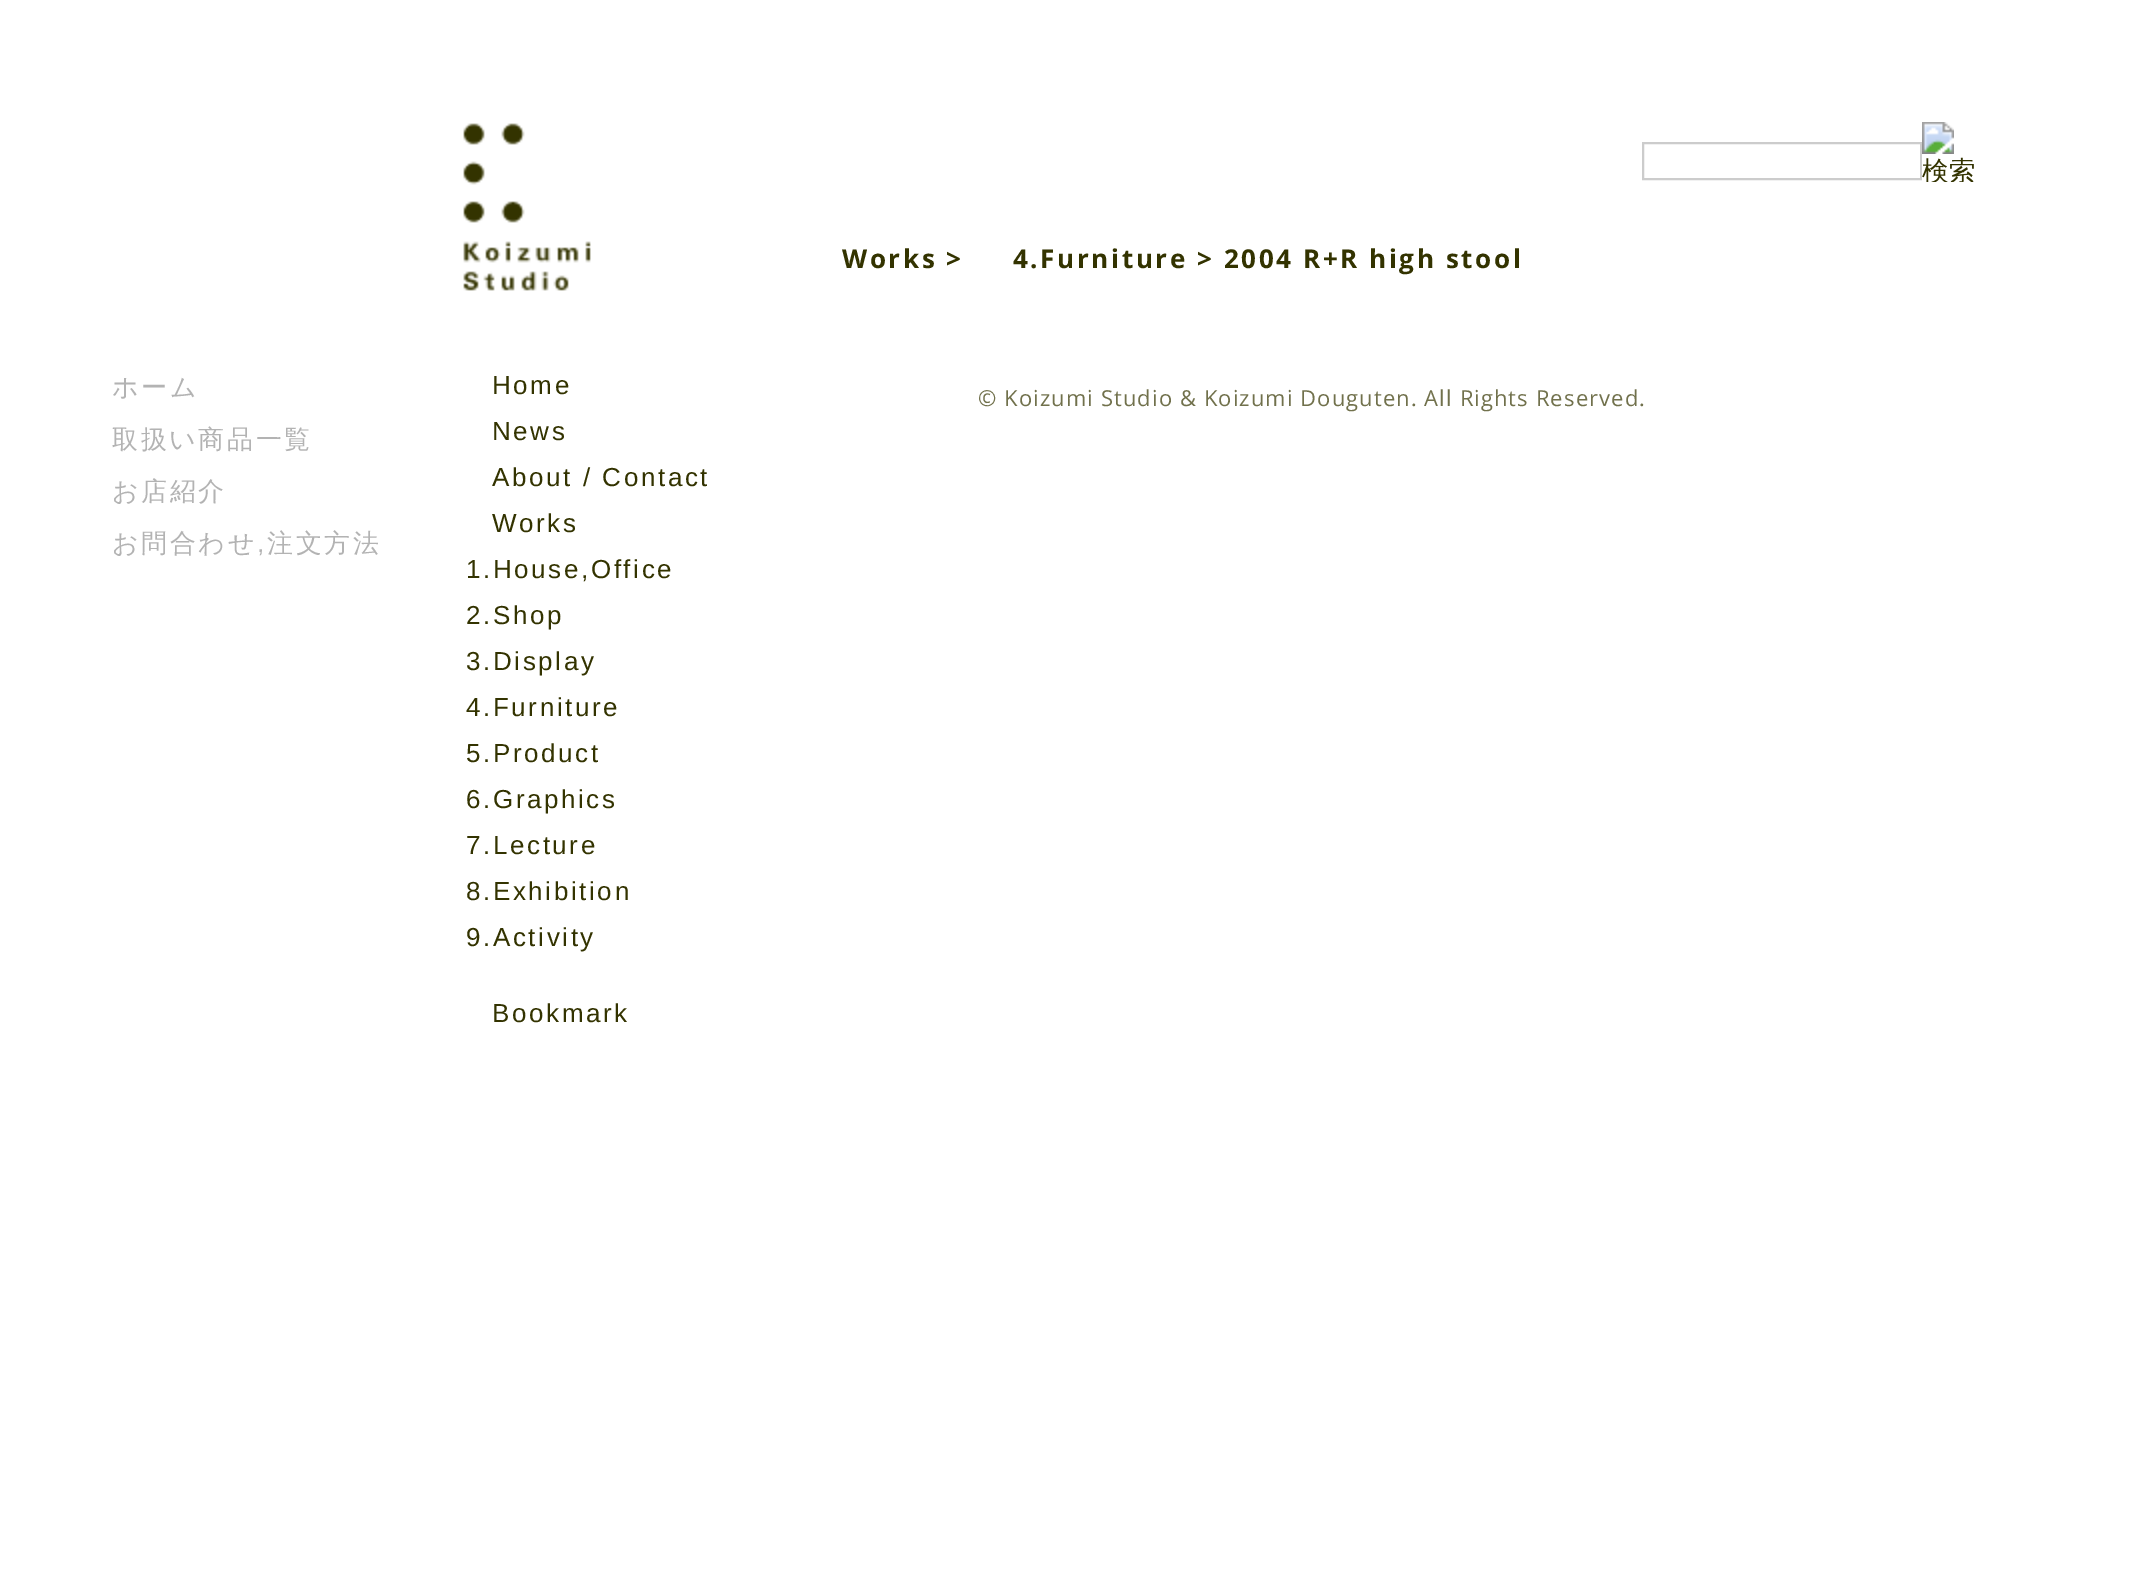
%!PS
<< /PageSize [2131 1581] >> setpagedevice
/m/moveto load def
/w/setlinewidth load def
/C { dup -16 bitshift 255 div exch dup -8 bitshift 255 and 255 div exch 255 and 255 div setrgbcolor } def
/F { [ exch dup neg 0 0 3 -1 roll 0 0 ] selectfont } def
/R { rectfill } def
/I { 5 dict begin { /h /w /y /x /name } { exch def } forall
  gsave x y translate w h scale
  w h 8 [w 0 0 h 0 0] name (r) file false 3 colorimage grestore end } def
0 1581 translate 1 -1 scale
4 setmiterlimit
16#FFFFFF C
0 0 2131 1581 R
16#CCCCCC C
2 w
1643 143 278 36 rectstroke
(1.rgb) 1922 122 52 60 I
/OpenSans-Bold 26 F
16#333300 C
842 268 m 2.6 0 (Works >) ashow
1013 268 m 2.6 0 (4.Furniture > 2004 R+R high stool) ashow
/OpenSans-Regular 22 F
16#71714C C
978 406 m 1.1 0 (© Koizumi Studio & Koizumi Douguten. All Rights Reserved.) ashow
/WenQuanYiZenHei-Medium 26 F
16#B3B3B3 C
112 396 m 2.6 0 (ホーム) ashow
112 448 m 2.6 0 (取扱い商品一覧) ashow
112 500 m 2.6 0 (お店紹介) ashow
112 552 m 2.6 0 (お問合わせ) ashow
/LiberationSans-Regular 26 F
257 552 m 2.6 0 (,) ashow
/WenQuanYiZenHei-Medium 26 F
267 552 m 2.6 0 (注文方法) ashow
(2.rgb) 463 123 128 168 I
/LiberationSans-Regular 26 F
16#333300 C
492 394 m 2.6 0 (Home) ashow
492 440 m 2.6 0 (News) ashow
492 486 m 2.6 0 (About / Contact) ashow
492 532 m 2.6 0 (Works) ashow
466 578 m 2.6 0 (1.House,Office) ashow
466 624 m 2.6 0 (2.Shop) ashow
466 670 m 2.6 0 (3.Display) ashow
466 716 m 2.6 0 (4.Furniture) ashow
466 762 m 2.6 0 (5.Product) ashow
466 808 m 2.6 0 (6.Graphics) ashow
466 854 m 2.6 0 (7.Lecture) ashow
466 900 m 2.6 0 (8.Exhibition) ashow
466 946 m 2.6 0 (9.Activity) ashow
492 1022 m 2.6 0 (Bookmark) ashow
showpage
